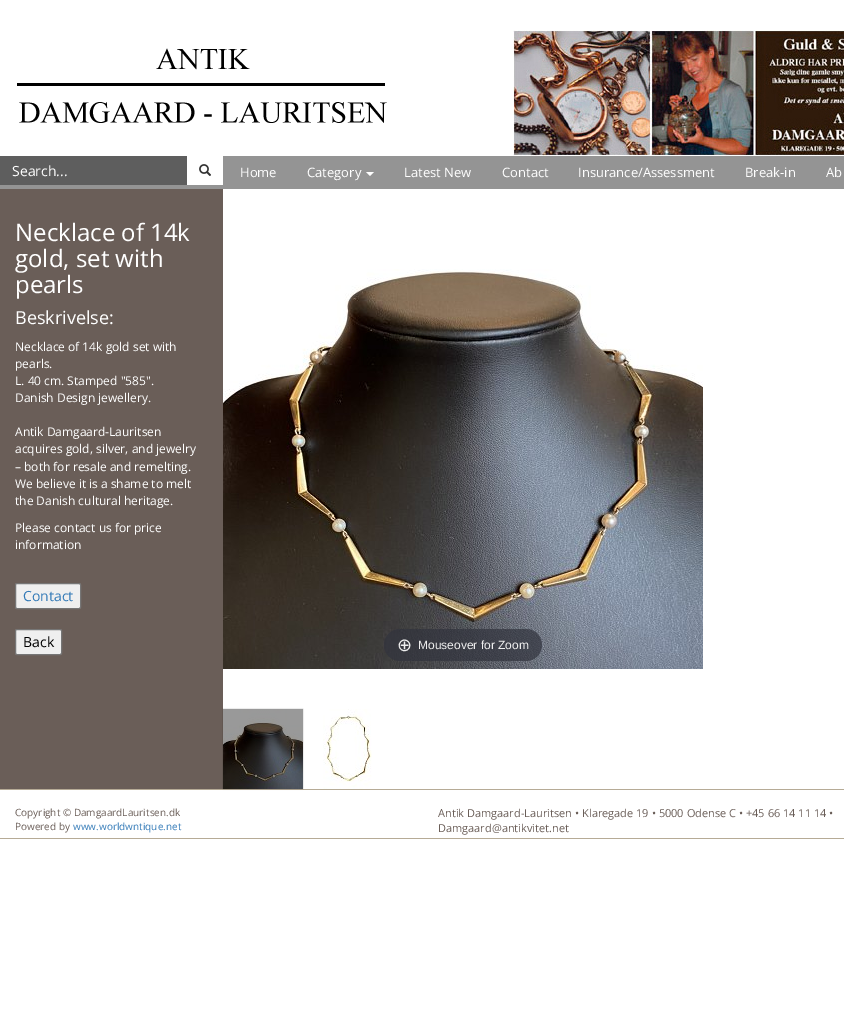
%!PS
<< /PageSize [844 1032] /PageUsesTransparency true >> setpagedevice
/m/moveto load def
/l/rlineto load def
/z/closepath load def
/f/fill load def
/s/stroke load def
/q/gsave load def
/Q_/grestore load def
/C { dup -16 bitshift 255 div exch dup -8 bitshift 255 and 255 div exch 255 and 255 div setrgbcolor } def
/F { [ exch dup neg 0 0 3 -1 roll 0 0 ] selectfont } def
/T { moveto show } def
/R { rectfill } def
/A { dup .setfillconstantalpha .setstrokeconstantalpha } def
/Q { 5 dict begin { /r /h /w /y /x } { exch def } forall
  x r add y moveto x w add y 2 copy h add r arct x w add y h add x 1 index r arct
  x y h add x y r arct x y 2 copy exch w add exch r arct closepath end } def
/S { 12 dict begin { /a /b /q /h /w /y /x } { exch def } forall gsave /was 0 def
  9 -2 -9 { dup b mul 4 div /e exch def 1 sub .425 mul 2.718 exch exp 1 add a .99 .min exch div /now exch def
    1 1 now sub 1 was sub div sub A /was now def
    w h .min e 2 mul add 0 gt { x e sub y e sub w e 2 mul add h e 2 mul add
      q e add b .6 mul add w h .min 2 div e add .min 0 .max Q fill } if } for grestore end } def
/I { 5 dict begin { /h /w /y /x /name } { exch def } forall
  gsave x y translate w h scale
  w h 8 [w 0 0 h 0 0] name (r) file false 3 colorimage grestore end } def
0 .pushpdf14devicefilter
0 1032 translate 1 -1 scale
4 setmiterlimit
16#FFFFFF C
0 0 844 1032 R
(1.rgb) 17 48 370 75 I
(2.rgb) 513 30 331 126 I
16#949494 C
0 156 844 33 R
16#5E5E5E C
0 156 187 29 R
/OpenSans-Regular 14 F
16#FFFFFF C
(Search...) 12 176 T
187 156 36 29 R
(3.rgb) 199 164 12 12 I
/OpenSans-Regular 13 F
(Home) 240 177 T
(Category) 307 177 T
366 172 m 8 0 l -4 4 l z f
(Latest New) 404 177 T
(Contact) 502 177 T
(Insurance/Assessment) 578 177 T
(Break-in) 745 177 T
(Ab) 826 177 T
16#6A5E58 C
0 189 223 600 R
/OpenSans-Regular 24 F
16#FFFFFF C
(Necklace of 14k) 15 241 T
(gold, set with) 15 267 T
(pearls) 15 293 T
/OpenSans-Regular 18 F
(Beskrivelse:) 15 324 T
/OpenSans-Regular 12 F
(Necklace of 14k gold set with) 15 351 T
(pearls.) 15 368 T
(L. 40 cm. Stamped "585".) 15 385 T
(Danish Design jewellery.) 15 402 T
(Antik Damgaard-Lauritsen) 15 436 T
(acquires gold, silver, and jewelry) 15 453 T
(– both for resale and remelting.) 15 471 T
(We believe it is a shame to melt) 15 488 T
(the Danish cultural heritage.) 15 505 T
(Please contact us for price) 15 532 T
(information) 15 549 T
16#EFEFEF C
15.5 583.5 65 25 1.5 Q q f Q_
16#767676 C
s
/OpenSans-Regular 14 F
16#337AB7 C
(Contact) 23 601 T
16#EFEFEF C
15.5 629.5 46 25 1.5 Q q f Q_
16#767676 C
s
16#000000 C
(Back) 23 647 T
(4.rgb) 223 269 480 400 I
0.7 A
16#31333D C
384 629 158 32 16 Q f
/DejaVuSans-Regular 18 F
1 A
16#EEEEEE C
(⊕) 397 651 T
/LiberationSans-Regular 12 F
(Mouseover for Zoom) 418 649 T
16#B6AB96 C
0 789 844 1 R
16#000000 C
223 709 80 80 0 .5 .3 S
(5.rgb) 223 709 80 80 I
(6.rgb) 323 709 49 80 I
16#B6AB96 C
0 838 844 1 R
/OpenSans-Regular 10 F
16#6A5E58 C
(Copyright © DamgaardLauritsen.dk) 15 816 T
(Powered by) 15 830 T
16#337AB7 C
(www.worldwntique.net) 73 830 T
/OpenSans-Regular 11 F
16#6A5E58 C
(Antik Damgaard-Lauritsen • Klaregade 19 • 5000 Odense C • +45 66 14 11 14 •) 438 817 T
(Damgaard@antikvitet.net) 438 832 T
.poppdf14devicefilter showpage
